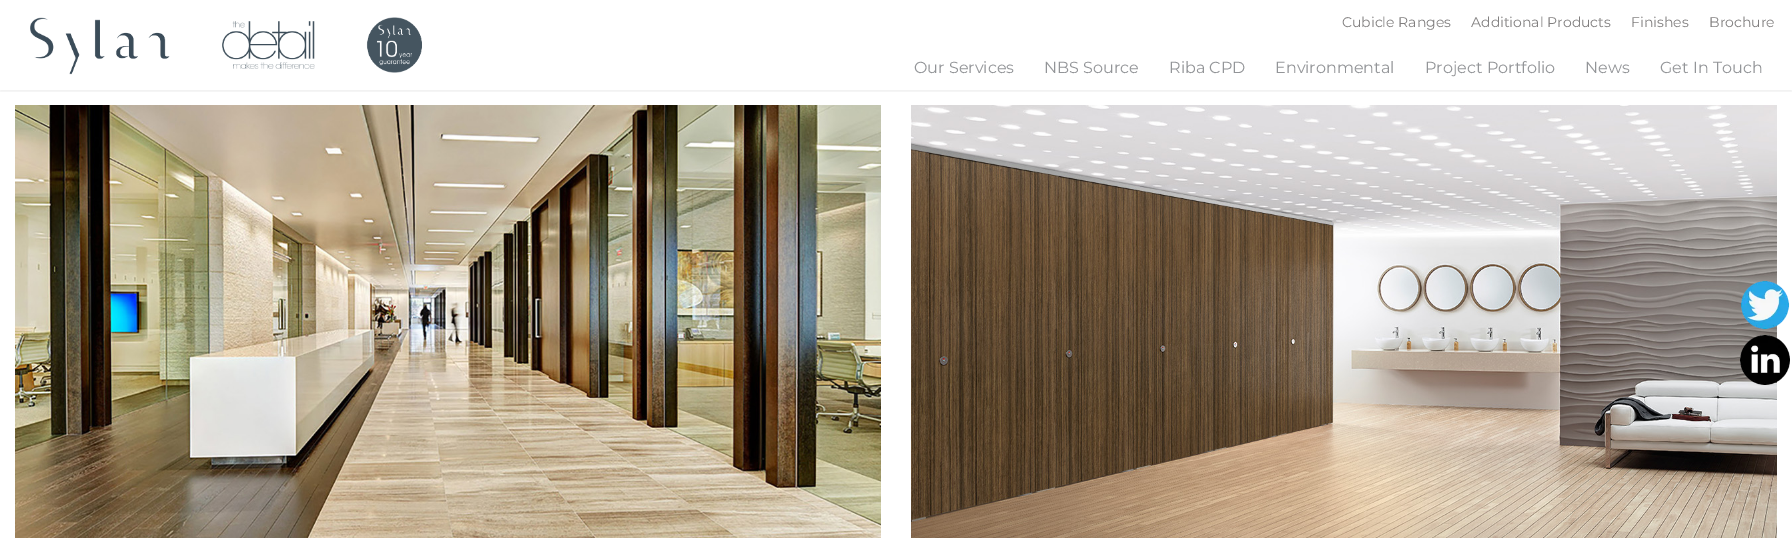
%!PS
<< /PageSize [1792 560] /PageUsesTransparency true >> setpagedevice
/q/gsave load def
/Q_/grestore load def
/C { dup -16 bitshift 255 div exch dup -8 bitshift 255 and 255 div exch 255 and 255 div setrgbcolor } def
/F { [ exch dup neg 0 0 3 -1 roll 0 0 ] selectfont } def
/T { moveto show } def
/R { rectfill } def
/A { dup .setfillconstantalpha .setstrokeconstantalpha } def
/Q { 5 dict begin { /r /h /w /y /x } { exch def } forall
  x r add y moveto x w add y 2 copy h add r arct x w add y h add x 1 index r arct
  x y h add x y r arct x y 2 copy exch w add exch r arct closepath end } def
/S { 12 dict begin { /a /b /q /h /w /y /x } { exch def } forall gsave /was 0 def
  9 -2 -9 { dup b mul 4 div /e exch def 1 sub .425 mul 2.718 exch exp 1 add a .99 .min exch div /now exch def
    1 1 now sub 1 was sub div sub A /was now def
    w h .min e 2 mul add 0 gt { x e sub y e sub w e 2 mul add h e 2 mul add
      q e add b .6 mul add w h .min 2 div e add .min 0 .max Q fill } if } for grestore end } def
/I { 5 dict begin { /h /w /y /x /name } { exch def } forall
  gsave x y translate w h scale
  w h 8 [w 0 0 h 0 0] name (r) file false 3 colorimage grestore end } def
0 .pushpdf14devicefilter
0 560 translate 1 -1 scale
4 setmiterlimit
16#FFFFFF C
0 0 1792 560 R
q
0 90 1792 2 rectclip
16#000000 C
0 2 1792 90 0 1 .05 S
Q_
(1.rgb) 30 17 392 58 I
/Montserrat-Regular 14 F
16#817F7F C
(Cubicle Ranges) 1342 27 T
(Additional Products) 1471 27 T
(Finishes) 1631 27 T
(Brochure) 1709 27 T
/Montserrat-Regular 16 F
16#939598 C
(Our Services) 914 73 T
(NBS Source) 1044 73 T
(Riba CPD) 1169 73 T
(Environmental) 1275 73 T
(Project Portfolio) 1425 73 T
(News) 1585 73 T
(Get In Touch) 1660 73 T
(2.rgb) 15 105 866 433 I
(3.rgb) 911 105 866 433 I
(4.rgb) 1740 280 50 50 I
(5.rgb) 1740 335 50 50 I
.poppdf14devicefilter showpage
